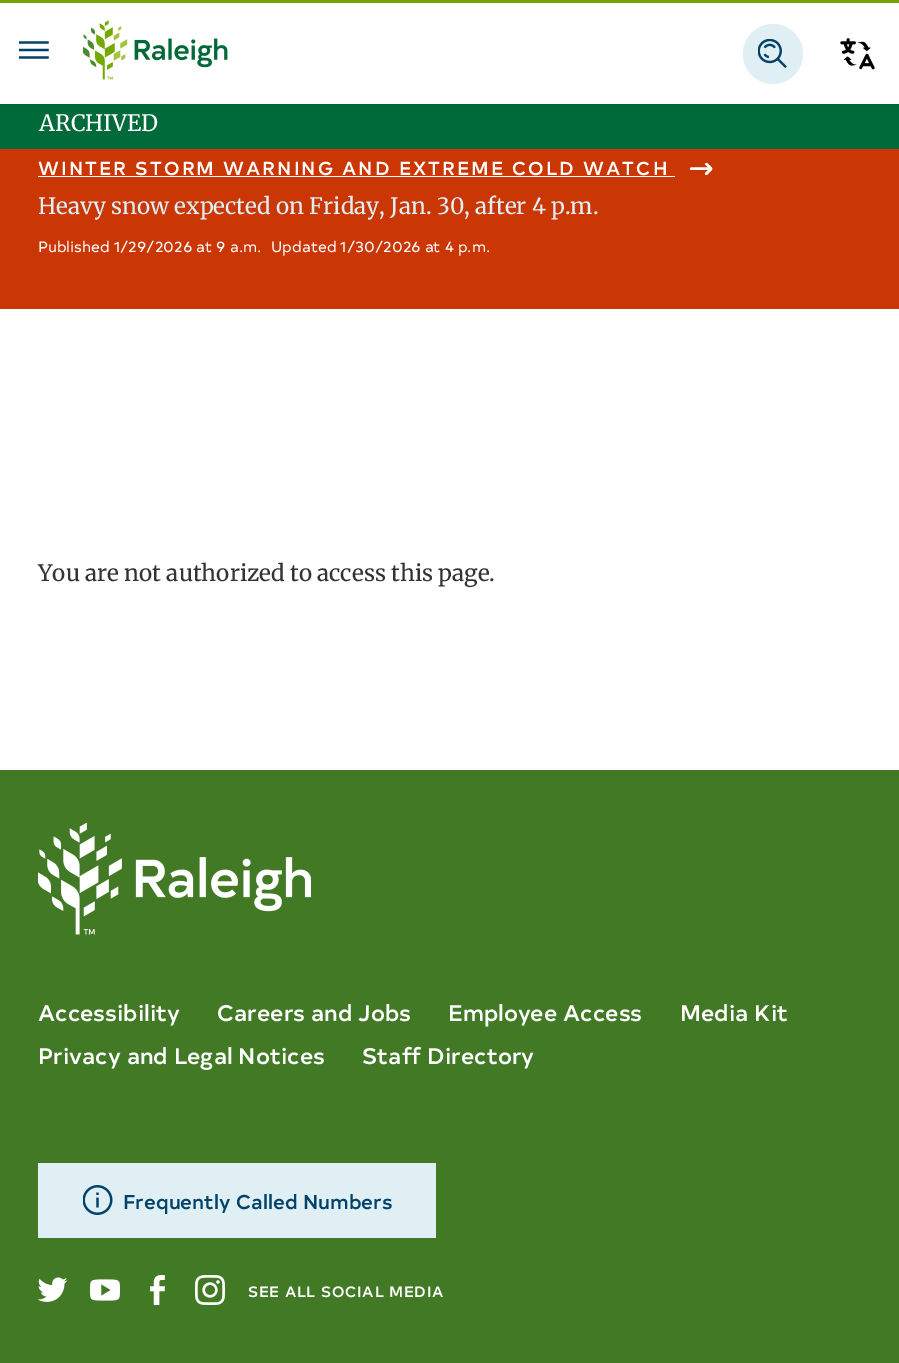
%!PS
<< /PageSize [899 1363] >> setpagedevice
/m/moveto load def
/f/fill load def
/C { dup -16 bitshift 255 div exch dup -8 bitshift 255 and 255 div exch 255 and 255 div setrgbcolor } def
/F { [ exch dup neg 0 0 3 -1 roll 0 0 ] selectfont } def
/T { moveto show } def
/R { rectfill } def
/O { newpath 0 360 arc closepath } def
/I { 5 dict begin { /h /w /y /x /name } { exch def } forall
  gsave x y translate w h scale
  w h 8 [w 0 0 h 0 0] name (r) file false 3 colorimage grestore end } def
0 1363 translate 1 -1 scale
4 setmiterlimit
16#FFFFFF C
0 0 899 1363 R
16#006537 C
0 104 899 2 R
16#72A300 C
0 0 899 3 R
(1.rgb) 83 20 145 60 I
16#E0EFF4 C
773 54 30 O f
(2.rgb) 758 39 29 29 I
(3.rgb) 840 38 35 32 I
(4.rgb) 19 41 30 18 I
16#006A3A C
0 106 899 43 R
/Merriweather-Regular 22.5 F
16#FFFFFF C
(ARCHIVED) 39 131 T
16#CA3604 C
0 149 899 160 R
/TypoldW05-Medium 18.75 F
16#FFFFFF C
38 175 m 2.1 0 (WINTER STORM WARNING AND EXTREME COLD WATCH) ashow
38 176 637 1 R
(5.rgb) 690 163 23 12 I
/Merriweather-Regular 22.5 F
16#E0EFF4 C
(Heavy snow expected on Friday, Jan. 30, after 4 p.m.) 38 214 T
/TypoldW05-Regular 15 F
16#FFFFFF C
(Published 1/29/2026 at 9 a.m.) 38 252 T
(Updated 1/30/2026 at 4 p.m.) 271 252 T
/Merriweather-Regular 22.5 F
16#333333 C
(You are not authorized to access this page.) 38 581 T
16#417925 C
0 770 899 593 R
(6.rgb) 38 823 273 112 I
/TypoldW05-Medium 22.5 F
16#FFFFFF C
(Accessibility) 38 1021 T
(Careers and Jobs) 217 1021 T
(Employee Access) 448 1021 T
(Media Kit) 680 1021 T
(Privacy and Legal Notices) 38 1064 T
(Staff Directory) 362 1064 T
16#E0EFF4 C
38 1163 398 75 R
(7.rgb) 83 1185 30 30 I
/TypoldW05-Medium 20 F
16#01426A C
(Frequently Called Numbers) 123 1209 T
(8.rgb) 38 1277 30 25 I
(9.rgb) 90 1279 30 22 I
(10.rgb) 150 1275 15 30 I
(11.rgb) 195 1275 30 30 I
/TypoldW05-Medium 15 F
16#FFFFFF C
248 1297 m .75 0 (SEE ALL SOCIAL MEDIA) ashow
showpage
